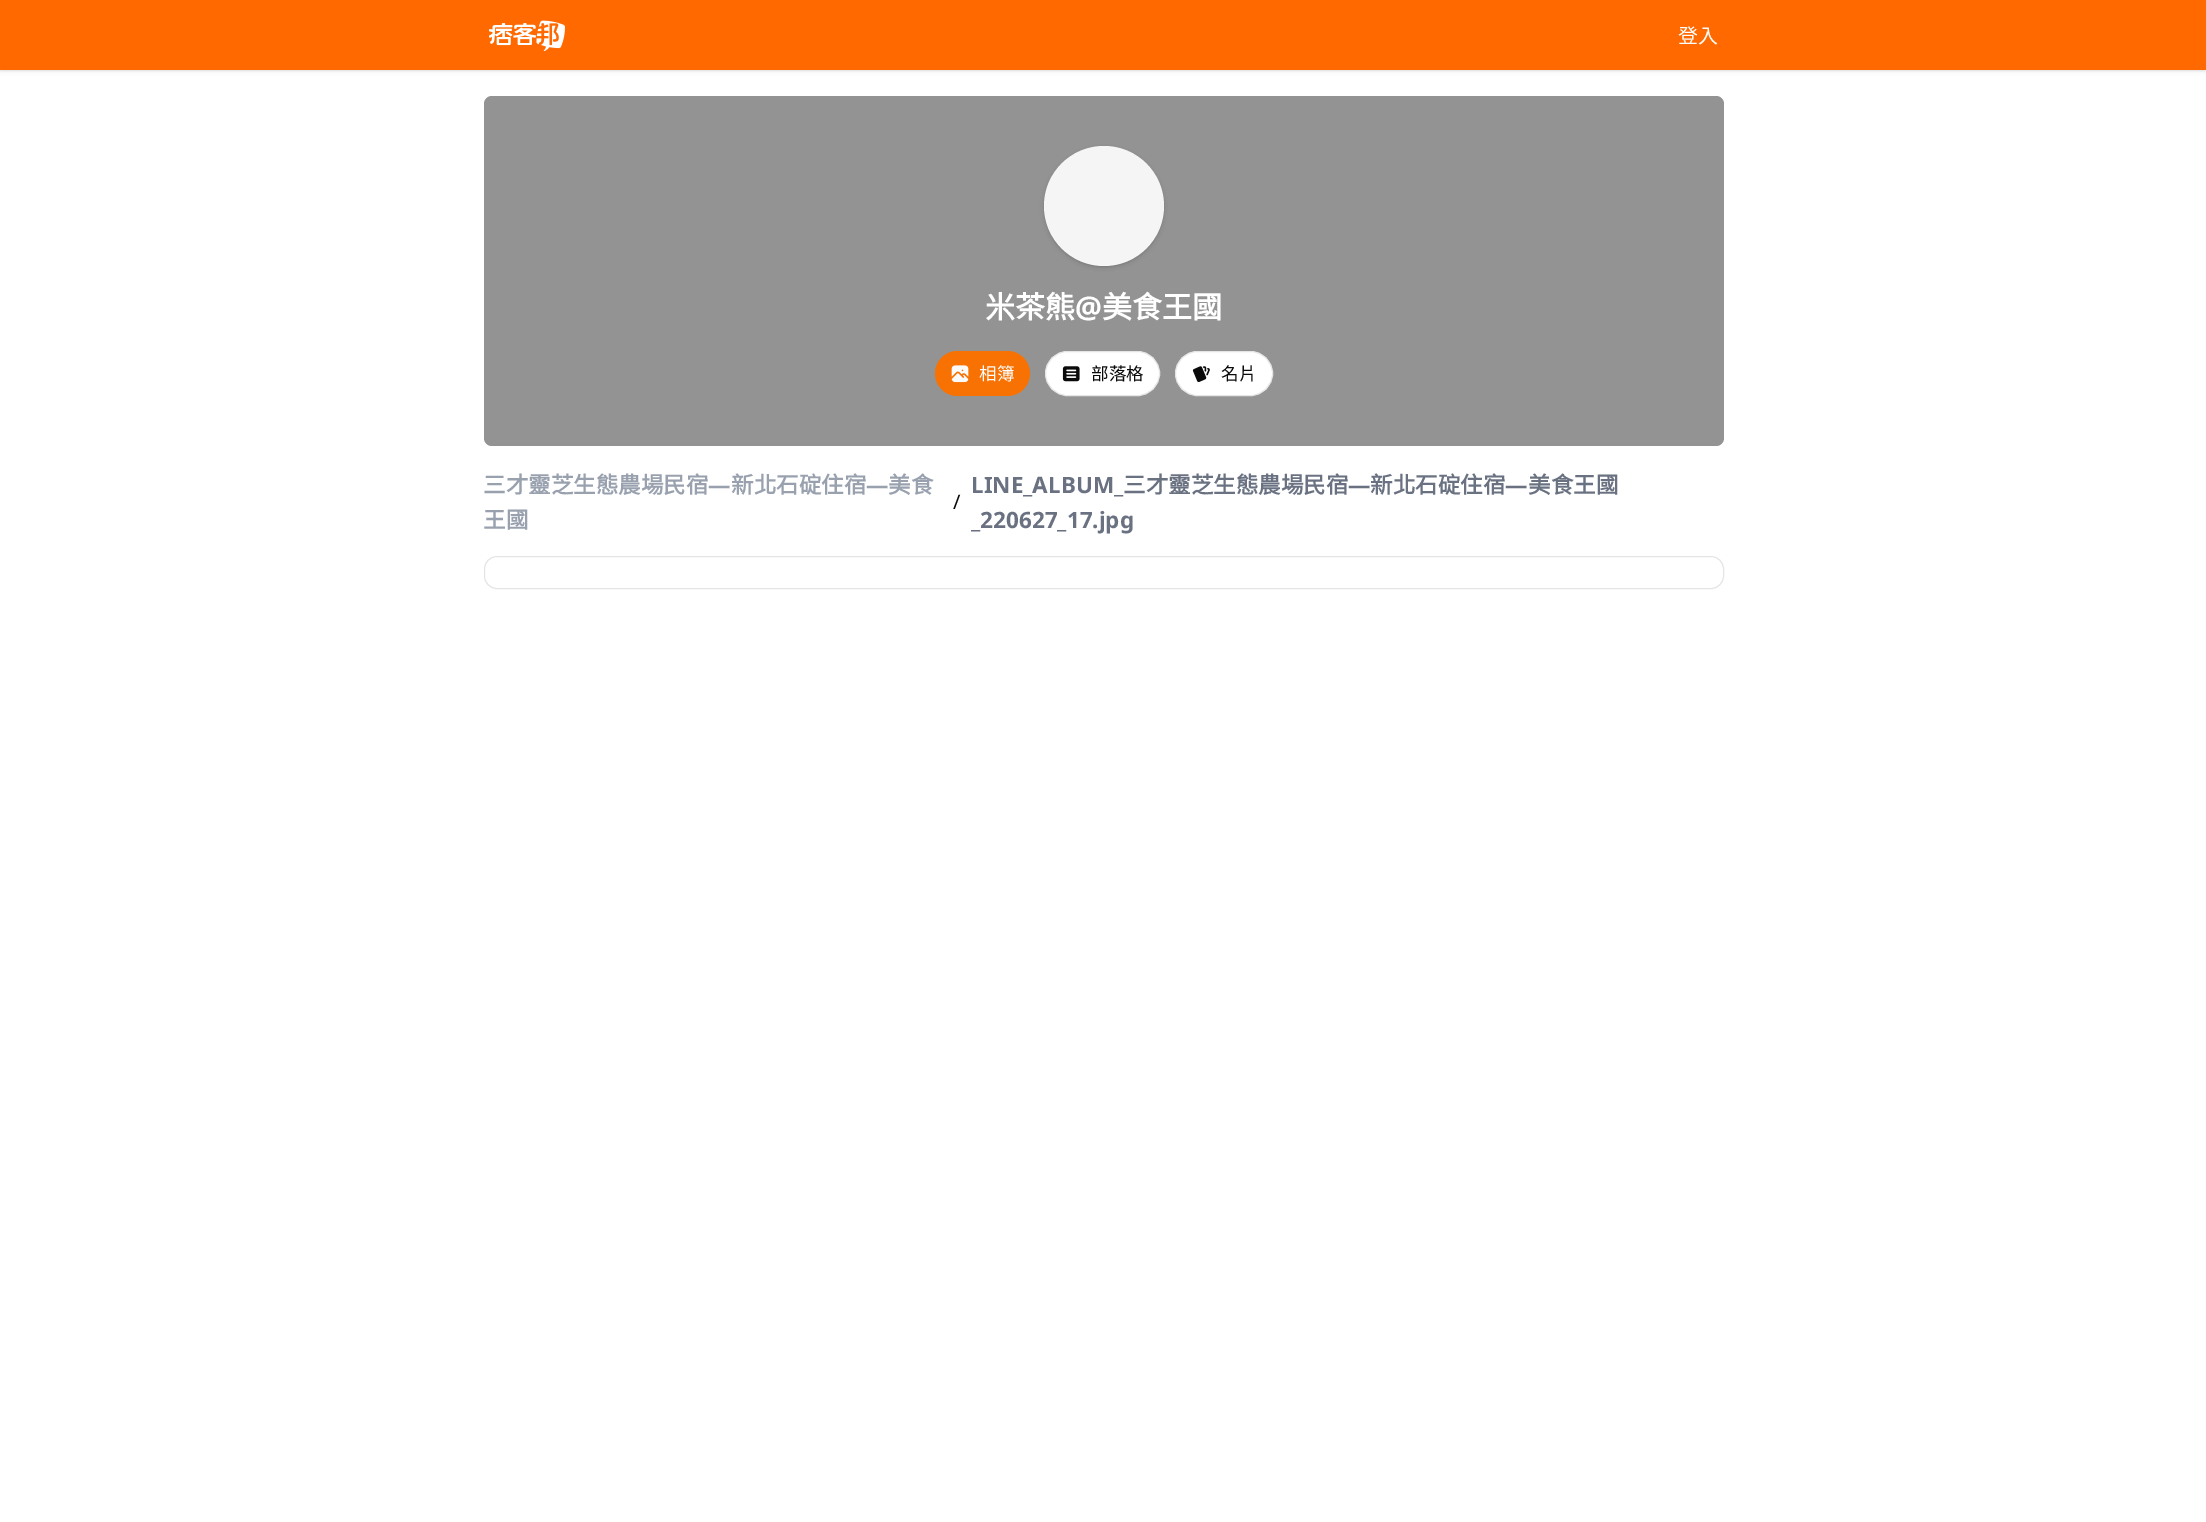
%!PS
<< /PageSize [2206 1522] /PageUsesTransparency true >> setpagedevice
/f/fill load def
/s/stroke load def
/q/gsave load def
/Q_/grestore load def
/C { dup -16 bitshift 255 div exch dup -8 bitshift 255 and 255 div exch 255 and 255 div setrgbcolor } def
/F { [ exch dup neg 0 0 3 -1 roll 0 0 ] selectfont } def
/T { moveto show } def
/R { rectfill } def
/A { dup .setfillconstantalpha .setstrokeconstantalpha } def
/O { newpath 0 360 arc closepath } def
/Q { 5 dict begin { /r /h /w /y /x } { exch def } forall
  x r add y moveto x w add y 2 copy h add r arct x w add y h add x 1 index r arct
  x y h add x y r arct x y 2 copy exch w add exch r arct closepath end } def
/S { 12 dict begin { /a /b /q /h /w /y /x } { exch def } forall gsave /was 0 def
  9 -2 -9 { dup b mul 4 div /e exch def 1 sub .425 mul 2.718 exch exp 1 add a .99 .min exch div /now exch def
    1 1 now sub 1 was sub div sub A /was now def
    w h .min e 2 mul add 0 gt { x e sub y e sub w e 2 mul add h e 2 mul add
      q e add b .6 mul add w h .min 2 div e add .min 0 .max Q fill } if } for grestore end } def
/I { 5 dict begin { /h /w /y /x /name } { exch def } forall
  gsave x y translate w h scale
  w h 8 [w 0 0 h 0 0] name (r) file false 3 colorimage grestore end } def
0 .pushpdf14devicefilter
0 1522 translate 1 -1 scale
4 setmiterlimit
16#FFFFFF C
0 0 2206 1522 R
16#000000 C
1 3 2204 67 0 1 .1 S
0 1 2206 70 0 2 .1 S
16#FF6900 C
0 0 2206 70 R
(1.rgb) 489 20 76 31 I
/NotoSansCJKTC-Regular 20 F
16#FFFFFF C
(登入) 1678 43 T
16#F5F5F5 C
484 96 1240 350 8 Q f
0.4 A
16#000000 C
484 96 1240 350 8 Q f
1 A
1045 149 118 117 58.5 1 .1 S
1044 148 120 120 60 2 .1 S
16#F5F5F5 C
1104 206 60 O f
/NotoSansCJKTC-Bold 30 F
16#FFFFFF C
(米茶熊) 985 318 T
/NotoSans-Bold 30 F
(@) 1075 318 T
/NotoSansCJKTC-Bold 30 F
(美食王國) 1102 318 T
16#F87103 C
935 351 95 45 22.5 Q f
(2.rgb) 951 365 18 18 I
/NotoSansCJKTC-Regular 17.5 F
16#FFFFFF C
(相簿) 979 380 T
1045.5 351.5 114 44 22 Q q f Q_
16#E5E5E5 C
s
(3.rgb) 1062 366 18 16 I
16#0A0A0A C
(部落格) 1091 380 T
16#FFFFFF C
1175.5 351.5 97 44 22 Q q f Q_
16#E5E5E5 C
s
(4.rgb) 1192 366 18 17 I
16#0A0A0A C
(名片) 1221 380 T
/NotoSansCJKTC-Bold 22.5 F
16#99A1AF C
(三才靈芝生態農場民宿) 483 493 T
/NotoSans-Bold 22.5 F
(—) 708 493 T
/NotoSansCJKTC-Bold 22.5 F
(新北石碇住宿) 731 493 T
/NotoSans-Bold 22.5 F
(—) 866 493 T
/NotoSansCJKTC-Bold 22.5 F
(美食) 888 493 T
(王國) 483 528 T
/NotoSans-Regular 20 F
16#0A0A0A C
(/) 953 509 T
/NotoSans-Bold 22.5 F
16#6A7282 C
(LINE_ALBUM_) 971 493 T
/NotoSansCJKTC-Bold 22.5 F
(三才靈芝生態農場民宿) 1123 493 T
/NotoSans-Bold 22.5 F
(—) 1348 493 T
/NotoSansCJKTC-Bold 22.5 F
(新北石碇住宿) 1370 493 T
/NotoSans-Bold 22.5 F
(—) 1505 493 T
/NotoSansCJKTC-Bold 22.5 F
(美食王國) 1528 493 T
/NotoSans-Bold 22.5 F
(_220627_17.jpg) 971 528 T
16#E5E5E5 C
484.5 556.5 1239 32 12.5 Q s
.poppdf14devicefilter showpage
